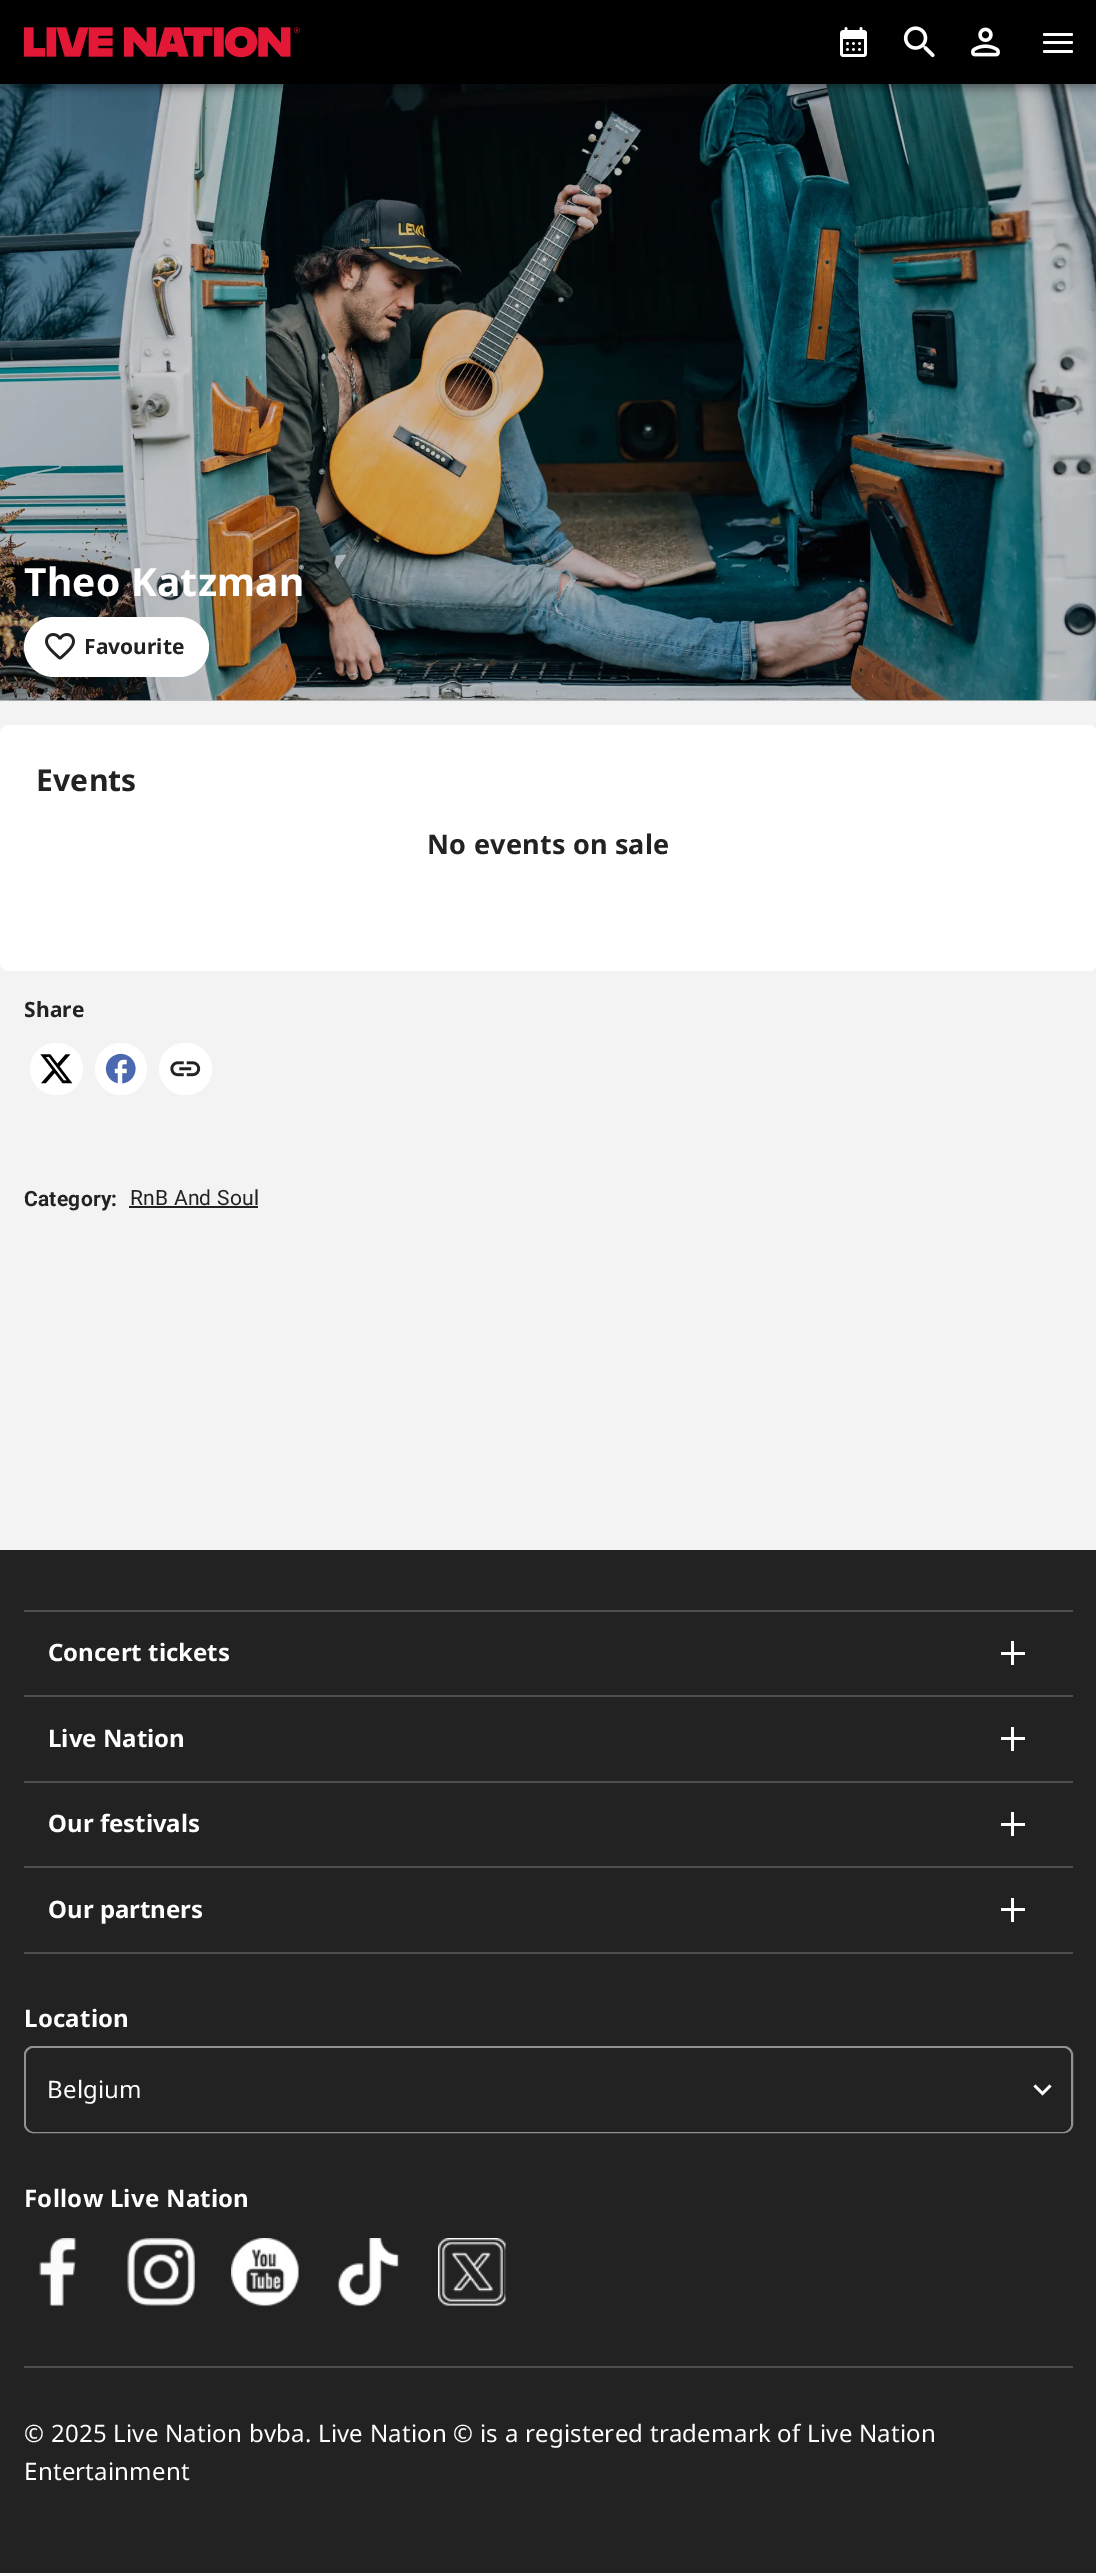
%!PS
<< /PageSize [1096 2573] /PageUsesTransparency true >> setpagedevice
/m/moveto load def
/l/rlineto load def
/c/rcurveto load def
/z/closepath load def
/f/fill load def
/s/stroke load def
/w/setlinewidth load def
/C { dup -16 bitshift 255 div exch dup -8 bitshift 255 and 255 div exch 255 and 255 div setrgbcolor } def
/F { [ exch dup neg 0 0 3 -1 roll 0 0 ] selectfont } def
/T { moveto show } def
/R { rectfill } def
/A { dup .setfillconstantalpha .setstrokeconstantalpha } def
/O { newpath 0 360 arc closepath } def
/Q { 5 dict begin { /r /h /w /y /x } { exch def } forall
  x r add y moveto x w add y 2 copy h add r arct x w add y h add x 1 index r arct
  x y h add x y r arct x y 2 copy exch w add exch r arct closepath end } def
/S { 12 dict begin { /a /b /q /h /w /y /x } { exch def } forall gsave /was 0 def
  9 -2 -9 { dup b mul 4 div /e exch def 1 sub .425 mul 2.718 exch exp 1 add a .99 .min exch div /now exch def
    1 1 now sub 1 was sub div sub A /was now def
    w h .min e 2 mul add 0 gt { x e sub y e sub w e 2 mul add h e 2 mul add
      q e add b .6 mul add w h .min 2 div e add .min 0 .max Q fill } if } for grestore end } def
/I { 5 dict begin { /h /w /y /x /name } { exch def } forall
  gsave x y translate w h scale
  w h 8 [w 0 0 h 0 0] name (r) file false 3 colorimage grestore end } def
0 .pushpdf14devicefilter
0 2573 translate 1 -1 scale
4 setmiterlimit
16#F3F3F3 C
0 0 1096 2573 R
16#C2C2C2 C
0 700 1096 1 R
(5.rgb) 0 84 1096 617 I
16#000000 C
0 2 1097 84 0 7.5 .12 S
0 6 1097 84 0 4 .14 S
2 5 1093 81 0 3 .2 S
0 0 1096 84 R
(1.rgb) 24 26 276 32 I
(2.rgb) 840 27 27 30 I
(3.rgb) 903 26 32 32 I
(4.rgb) 971 27 29 30 I
16#FFFFFF C
1043 33 30 3 1.5 Q f
1043 41 30 3 1.5 Q f
1043 50 30 3 1.5 Q f
/NotoSans-Bold 39 F
24 596 m .23 0 (Theo Katzman) ashow
24 617 185 60 30 Q f
(6.rgb) 45 633 30 27 I
/NotoSans-Bold 21 F
16#222222 C
(Favourite) 84 654 T
16#FFFFFF C
0 725 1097 246 9 Q f
/NotoSans-Bold 30 F
16#222222 C
36 791 m .23 0 (Events) ashow
16#FFFFFF C
0 824 m 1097 0 l 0 138 l 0 5 -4 9 -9 9 c -1079 0 l -5 0 -9 -4 -9 -9 c z f
/NotoSans-Bold 27 F
16#222222 C
427 854 m .23 0 (No events on sale) ashow
/NotoSans-Bold 21 F
24 1017 m .23 0 (Share) ashow
16#FFFFFF C
30 1043 53 52 26 Q f
(7.rgb) 40 1054 33 30 I
121 1069 26 O f
(8.rgb) 105 1053 31 31 I
159 1043 53 52 26 Q f
(9.rgb) 170 1061 31 16 I
/Roboto-Bold 21 F
16#222222 C
24 1206 m .23 0 (Category:) ashow
/Roboto-Regular 21 F
130 1205 m .23 0 (RnB And Soul) ashow
129 1206 129 2 R
0 1550 1096 1023 R
16#4E4E4E C
24 1610 1049 2 R
/NotoSans-Bold 24 F
16#FFFFFF C
(Concert tickets) 48 1661 T
1001 1652 24 3 R
1011 1641 3 24 R
16#4E4E4E C
24 1695 1049 2 R
16#FFFFFF C
(Live Nation) 48 1747 T
1001 1737 24 3 R
1011 1727 3 24 R
16#4E4E4E C
24 1781 1049 2 R
16#FFFFFF C
(Our festivals) 48 1832 T
1001 1823 24 3 R
1011 1812 3 24 R
16#4E4E4E C
24 1866 1049 2 R
24 1952 1049 2 R
16#FFFFFF C
(Our partners) 48 1918 T
1001 1908 24 3 R
1011 1898 3 24 R
24 2027 m .23 0 (Location) ashow
16#919191 C
2 w
25 2047 1047 85 8 Q s
16#222222 C
26 2048 1045 84 9 Q f
/NotoSans-Regular 24 F
16#FFFFFF C
47 2098 m .23 0 (Belgium) ashow
1035.5 2084.5 m 7 7 l 7 -7 l 2 2 l -9 9 l -9 -9 l z f
/NotoSans-Bold 24 F
24 2207 m .23 0 (Follow Live Nation) ashow
(10.rgb) 39 2238 38 68 I
(11.rgb) 127 2238 68 68 I
(12.rgb) 231 2238 68 68 I
(13.rgb) 337 2238 63 68 I
(14.rgb) 438 2238 68 68 I
16#4E4E4E C
24 2366 1049 2 R
/NotoSans-Regular 24 F
16#FFFFFF C
24 2442 m .23 0 (© 2025 Live Nation bvba. Live Nation © is a registered trademark of Live Nation) ashow
24 2480 m .23 0 (Entertainment) ashow
.poppdf14devicefilter showpage
